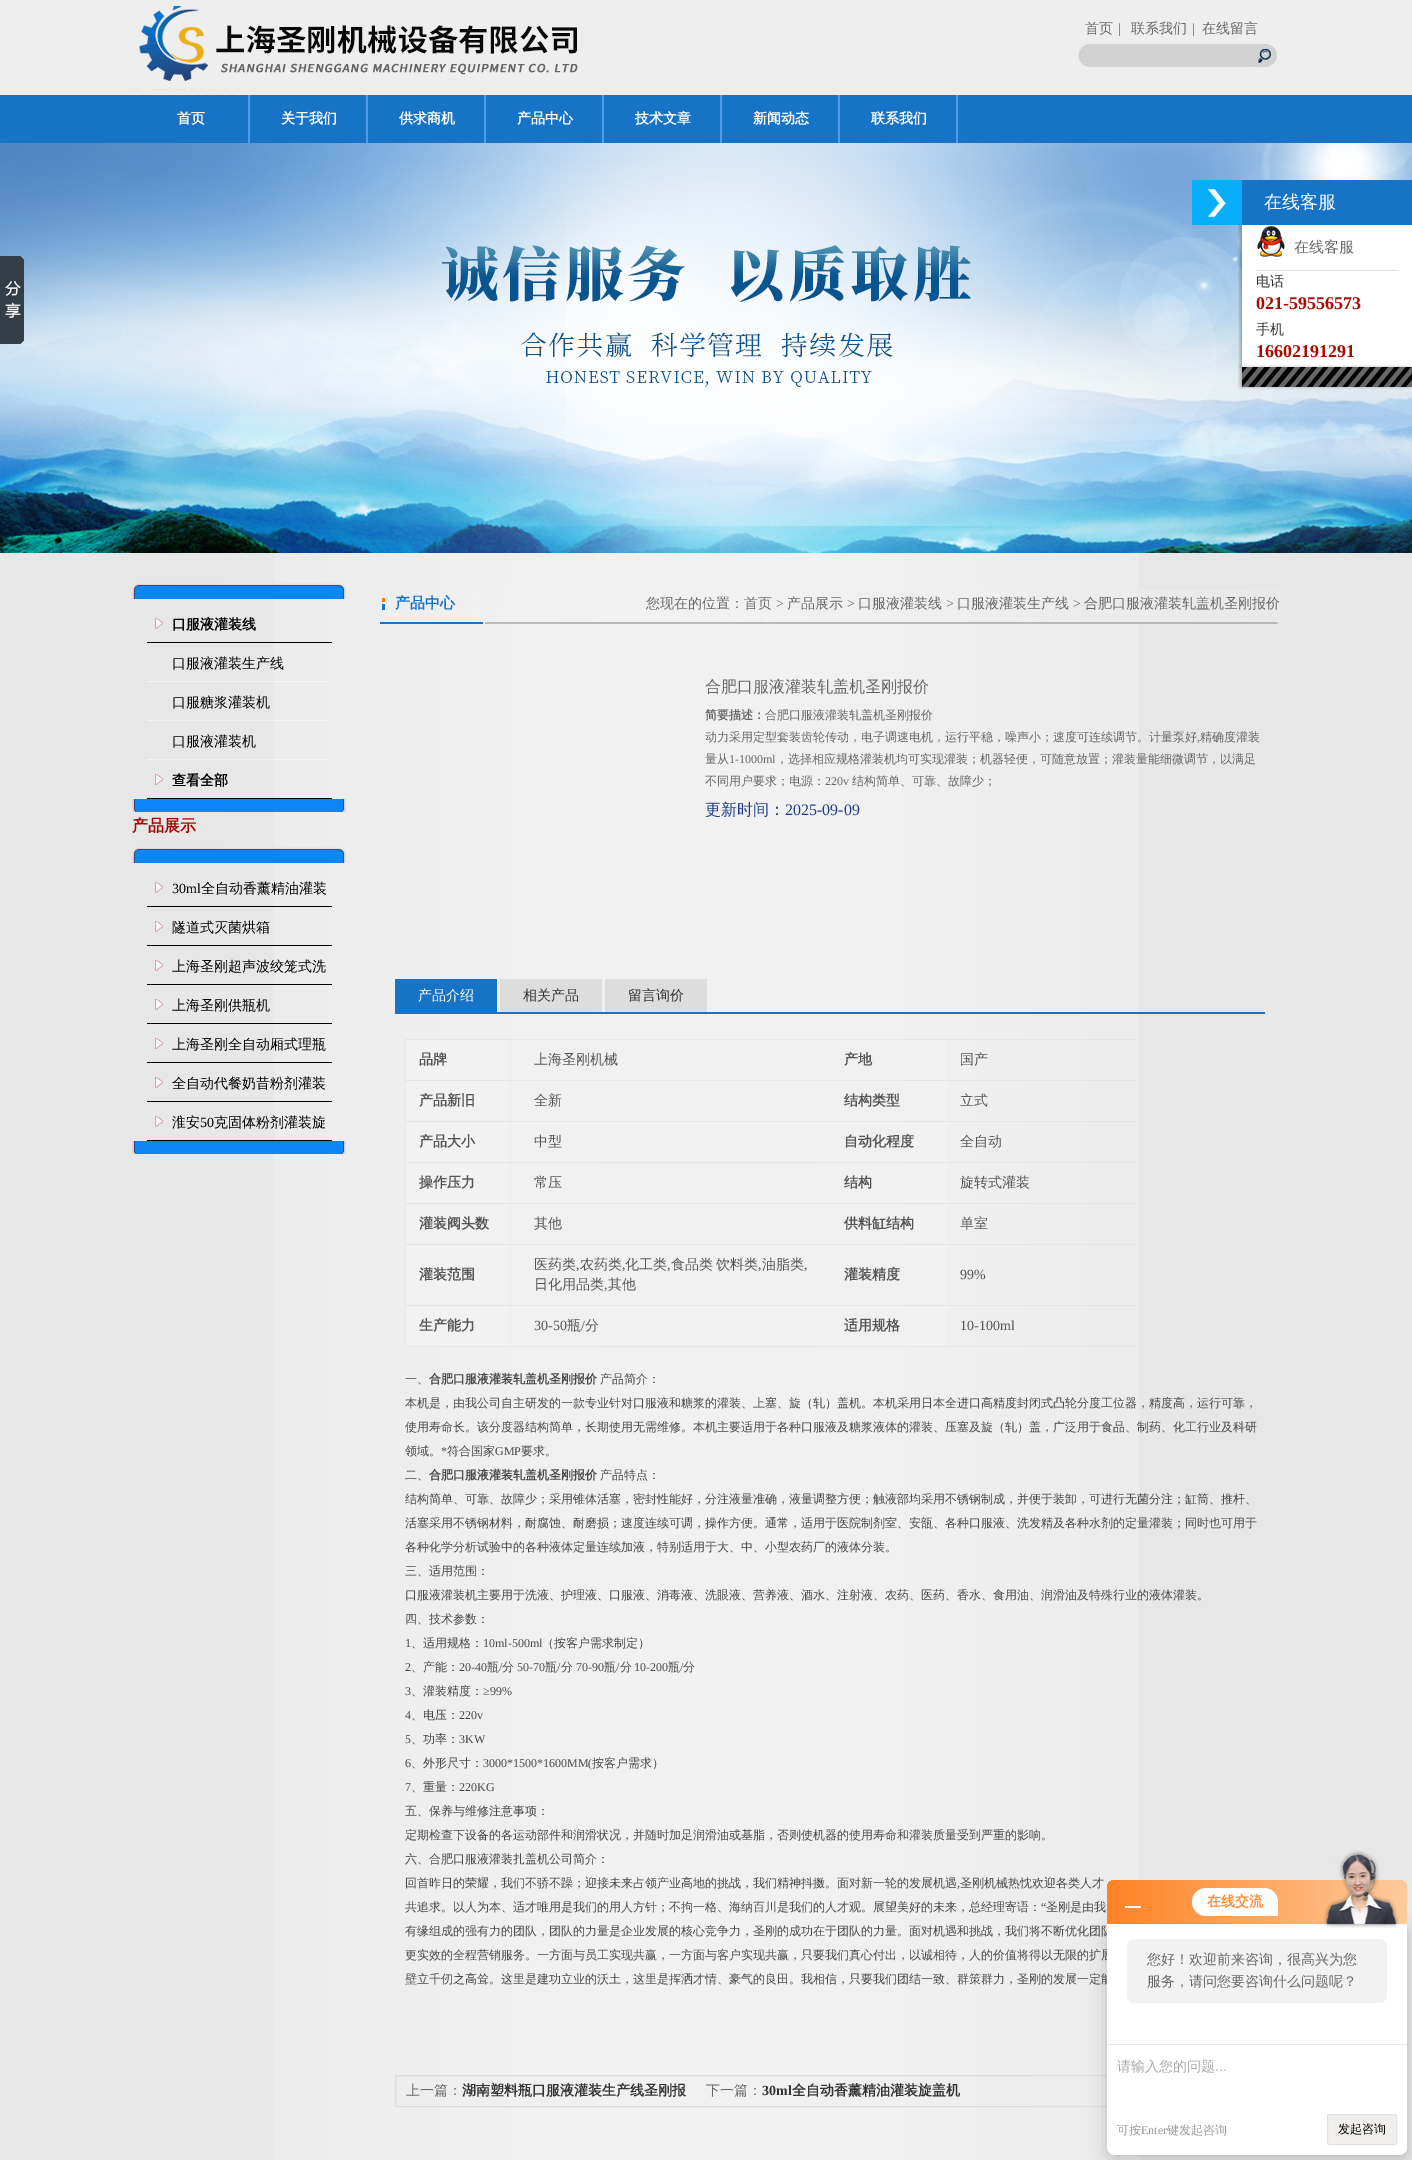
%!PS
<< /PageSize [1412 2160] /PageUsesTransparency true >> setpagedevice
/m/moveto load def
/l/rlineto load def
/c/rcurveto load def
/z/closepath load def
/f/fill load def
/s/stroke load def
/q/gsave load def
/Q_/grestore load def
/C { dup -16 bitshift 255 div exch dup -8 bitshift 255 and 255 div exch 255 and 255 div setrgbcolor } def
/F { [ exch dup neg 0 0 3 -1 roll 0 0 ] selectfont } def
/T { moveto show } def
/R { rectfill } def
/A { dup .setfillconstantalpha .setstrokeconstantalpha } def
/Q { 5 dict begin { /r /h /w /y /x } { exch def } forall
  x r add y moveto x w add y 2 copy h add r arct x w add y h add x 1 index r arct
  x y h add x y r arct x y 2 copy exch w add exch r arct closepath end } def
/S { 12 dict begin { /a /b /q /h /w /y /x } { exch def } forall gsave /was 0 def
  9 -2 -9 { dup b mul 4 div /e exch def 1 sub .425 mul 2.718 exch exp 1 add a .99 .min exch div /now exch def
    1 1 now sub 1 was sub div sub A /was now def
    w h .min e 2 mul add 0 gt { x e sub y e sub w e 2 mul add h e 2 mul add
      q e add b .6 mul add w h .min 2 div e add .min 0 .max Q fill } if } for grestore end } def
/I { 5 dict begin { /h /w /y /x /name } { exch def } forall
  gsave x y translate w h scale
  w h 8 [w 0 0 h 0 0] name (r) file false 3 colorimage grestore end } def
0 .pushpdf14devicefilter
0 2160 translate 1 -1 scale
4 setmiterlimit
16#EEEEEE C
0 0 1412 2160 R
(1.rgb) 132 6 446 84 I
/WenQuanYiZenHei-Medium 14 F
16#666666 C
(首页) 1085 33 T
/LiberationSerif-Regular 14 F
(|) 1118 33 T
/WenQuanYiZenHei-Medium 14 F
(联系我们) 1131 33 T
/LiberationSerif-Regular 14 F
(|) 1192 33 T
/WenQuanYiZenHei-Medium 14 F
(在线留言) 1202 33 T
(2.rgb) 1078 44 200 23 I
16#1773C6 C
0 95 1412 48 R
16#4F9DE8 C
248 95 2 48 R
/WenQuanYiZenHei-Bold 14 F
16#FFFFFF C
(首页) 177 123 T
16#4F9DE8 C
366 95 2 48 R
16#FFFFFF C
(关于我们) 281 123 T
16#4F9DE8 C
484 95 2 48 R
16#FFFFFF C
(供求商机) 399 123 T
16#4F9DE8 C
602 95 2 48 R
16#FFFFFF C
(产品中心) 517 123 T
16#4F9DE8 C
720 95 2 48 R
16#FFFFFF C
(技术文章) 635 123 T
16#4F9DE8 C
838 95 2 48 R
16#FFFFFF C
(新闻动态) 753 123 T
16#4F9DE8 C
956 95 2 48 R
16#FFFFFF C
(联系我们) 871 123 T
(3.rgb) 0 143 1412 410 I
(4.rgb) 0 256 24 88 I
(5.rgb) 1192 180 50 45 I
1242 225 170 142 R
q
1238 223 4 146 rectclip
16#000000 C
1240 225 170 142 0 1.5 .25 S
Q_
16#1773C6 C
1242 180 170 45 R
/WenQuanYiZenHei-Medium 18 F
16#FFFFFF C
(在线客服) 1264 208 T
16#E3E3E3 C
1256 270 142 1 R
(6.rgb) 1257 226 29 33 I
/WenQuanYiZenHei-Medium 15 F
16#666666 C
(在线客服) 1294 252 T
/WenQuanYiZenHei-Medium 14 F
16#333333 C
(电话) 1256 286 T
/LiberationSerif-Bold 18 F
16#A80D01 C
(021-59556573) 1256 309 T
/WenQuanYiZenHei-Medium 14 F
16#333333 C
(手机) 1256 334 T
/LiberationSerif-Bold 18 F
16#A80D01 C
(16602191291) 1256 357 T
16#000000 C
1240 367 170 20 0 1.5 .25 S
(7.rgb) 1242 367 170 20 I
16#E7E7E7 C
0 553 1412 1607 R
(8.rgb) 274 553 865 1607 I
(9.rgb) 132 583 214 16 I
(10.rgb) 155 618 8 11 I
16#000000 C
147 642 185 1 R
/WenQuanYiZenHei-Bold 14 F
(口服液灌装线) 172 629 T
16#F7F1F1 C
147 681 185 1 R
/WenQuanYiZenHei-Medium 14 F
16#000000 C
(口服液灌装生产线) 172 668 T
16#F7F1F1 C
147 720 185 1 R
16#000000 C
(口服糖浆灌装机) 172 707 T
16#F7F1F1 C
147 759 185 1 R
16#000000 C
(口服液灌装机) 172 746 T
(10.rgb) 155 774 8 11 I
147 798 185 1 R
/WenQuanYiZenHei-Bold 14 F
(查看全部) 172 785 T
(11.rgb) 132 799 214 13 I
/WenQuanYiZenHei-Bold 16 F
16#AC0000 C
(产品展示) 132 831 T
(9.rgb) 132 847 214 16 I
(10.rgb) 155 882 8 11 I
16#000000 C
147 906 185 1 R
/LiberationSerif-Regular 14 F
(30ml) 172 893 T
/WenQuanYiZenHei-Medium 14 F
(全自动香薰精油灌装) 201 893 T
(10.rgb) 155 921 8 11 I
147 945 185 1 R
(隧道式灭菌烘箱) 172 932 T
(10.rgb) 155 960 8 11 I
147 984 185 1 R
(上海圣刚超声波绞笼式洗) 172 971 T
(10.rgb) 155 999 8 11 I
147 1023 185 1 R
(上海圣刚供瓶机) 172 1010 T
(10.rgb) 155 1038 8 11 I
147 1062 185 1 R
(上海圣刚全自动厢式理瓶) 172 1049 T
(10.rgb) 155 1077 8 11 I
147 1101 185 1 R
(全自动代餐奶昔粉剂灌装) 172 1088 T
(10.rgb) 155 1116 8 11 I
147 1140 185 1 R
(淮安) 172 1127 T
/LiberationSerif-Regular 14 F
(50) 200 1127 T
/WenQuanYiZenHei-Medium 14 F
(克固体粉剂灌装旋) 214 1127 T
(11.rgb) 132 1141 214 13 I
(12.rgb) 380 590 899 34 I
/WenQuanYiZenHei-Bold 15 F
16#1773C6 C
(产品中心) 395 608 T
/WenQuanYiZenHei-Medium 14 F
16#666666 C
(您现在的位置：首页) 646 608 T
/LiberationSerif-Regular 14 F
(>) 776 608 T
/WenQuanYiZenHei-Medium 14 F
(产品展示) 787 608 T
/LiberationSerif-Regular 14 F
(>) 847 608 T
/WenQuanYiZenHei-Medium 14 F
(口服液灌装线) 858 608 T
/LiberationSerif-Regular 14 F
(>) 946 608 T
/WenQuanYiZenHei-Medium 14 F
(口服液灌装生产线) 957 608 T
/LiberationSerif-Regular 14 F
(>) 1073 608 T
/WenQuanYiZenHei-Medium 14 F
(合肥口服液灌装轧盖机圣刚报价) 1084 608 T
/WenQuanYiZenHei-Medium 16 F
(合肥口服液灌装轧盖机圣刚报价) 705 692 T
/WenQuanYiZenHei-Bold 12 F
(简要描述：) 705 719 T
/WenQuanYiZenHei-Medium 12 F
(合肥口服液灌装轧盖机圣刚报价) 765 719 T
(动力采用定型套装齿轮传动，电子调速电机，运行平稳，噪声小；速度可连续调节。计量泵好) 705 741 T
/LiberationSerif-Regular 12 F
(,) 1197 741 T
/WenQuanYiZenHei-Medium 12 F
(精确度灌装) 1200 741 T
(量从) 705 763 T
/LiberationSerif-Regular 12 F
(1-1000ml) 729 763 T
/WenQuanYiZenHei-Medium 12 F
(，选择相应规格灌装机均可实现灌装；机器轻便，可随意放置；灌装量能细微调节，以满足) 776 763 T
(不同用户要求；电源：) 705 785 T
/LiberationSerif-Regular 12 F
(220v) 825 785 T
/WenQuanYiZenHei-Medium 12 F
(结构简单、可靠、故障少；) 852 785 T
/WenQuanYiZenHei-Medium 16 F
16#1F4087 C
(更新时间：) 705 815 T
/LiberationSerif-Regular 16 F
(2025-09-09) 785 815 T
16#1773C6 C
395 1012 870 2 R
395 979 102 33 R
/WenQuanYiZenHei-Medium 14 F
16#FFFFFF C
(产品介绍) 418 1000 T
16#DDDDDD C
500 979 102 33 R
16#333333 C
(相关产品) 523 1000 T
16#DDDDDD C
605 979 102 33 R
16#333333 C
(留言询价) 628 1000 T
16#E6E5E5 C
405 1039 734 1 R
405 1039 1 308 R
16#F2F2F2 C
406 1040 102 40 R
/WenQuanYiZenHei-Bold 14 F
16#555555 C
(品牌) 419 1064 T
/WenQuanYiZenHei-Medium 14 F
(上海圣刚机械) 534 1064 T
16#F2F2F2 C
905 1040 42 40 R
/WenQuanYiZenHei-Bold 14 F
16#555555 C
(产地) 844 1064 T
16#E6E5E5 C
405 1080 734 1 R
/WenQuanYiZenHei-Medium 14 F
16#555555 C
(国产) 960 1064 T
16#F2F2F2 C
406 1081 102 40 R
/WenQuanYiZenHei-Bold 14 F
16#555555 C
(产品新旧) 419 1105 T
/WenQuanYiZenHei-Medium 14 F
(全新) 534 1105 T
16#F2F2F2 C
905 1081 42 40 R
/WenQuanYiZenHei-Bold 14 F
16#555555 C
(结构类型) 844 1105 T
16#E6E5E5 C
405 1121 734 1 R
/WenQuanYiZenHei-Medium 14 F
16#555555 C
(立式) 960 1105 T
16#F2F2F2 C
406 1122 102 40 R
/WenQuanYiZenHei-Bold 14 F
16#555555 C
(产品大小) 419 1146 T
/WenQuanYiZenHei-Medium 14 F
(中型) 534 1146 T
16#F2F2F2 C
905 1122 42 40 R
/WenQuanYiZenHei-Bold 14 F
16#555555 C
(自动化程度) 844 1146 T
16#E6E5E5 C
405 1162 734 1 R
/WenQuanYiZenHei-Medium 14 F
16#555555 C
(全自动) 960 1146 T
16#F2F2F2 C
406 1163 102 40 R
/WenQuanYiZenHei-Bold 14 F
16#555555 C
(操作压力) 419 1187 T
/WenQuanYiZenHei-Medium 14 F
(常压) 534 1187 T
16#F2F2F2 C
905 1163 42 40 R
/WenQuanYiZenHei-Bold 14 F
16#555555 C
(结构) 844 1187 T
16#E6E5E5 C
405 1203 734 1 R
/WenQuanYiZenHei-Medium 14 F
16#555555 C
(旋转式灌装) 960 1187 T
16#F2F2F2 C
406 1204 102 40 R
/WenQuanYiZenHei-Bold 14 F
16#555555 C
(灌装阀头数) 419 1228 T
/WenQuanYiZenHei-Medium 14 F
(其他) 534 1228 T
16#F2F2F2 C
905 1204 42 40 R
/WenQuanYiZenHei-Bold 14 F
16#555555 C
(供料缸结构) 844 1228 T
16#E6E5E5 C
405 1244 734 1 R
/WenQuanYiZenHei-Medium 14 F
16#555555 C
(单室) 960 1228 T
16#F2F2F2 C
406 1245 102 60 R
/WenQuanYiZenHei-Bold 14 F
16#555555 C
(灌装范围) 419 1279 T
/WenQuanYiZenHei-Medium 14 F
(医药类) 534 1269 T
/LiberationSerif-Regular 14 F
(,) 576 1269 T
/WenQuanYiZenHei-Medium 14 F
(农药类) 580 1269 T
/LiberationSerif-Regular 14 F
(,) 622 1269 T
/WenQuanYiZenHei-Medium 14 F
(化工类) 625 1269 T
/LiberationSerif-Regular 14 F
(,) 667 1269 T
/WenQuanYiZenHei-Medium 14 F
671 1269 m -1 0 32 (食品类 饮料类) widthshow
/LiberationSerif-Regular 14 F
(,) 758 1269 T
/WenQuanYiZenHei-Medium 14 F
(油脂类) 762 1269 T
/LiberationSerif-Regular 14 F
(,) 804 1269 T
/WenQuanYiZenHei-Medium 14 F
(日化用品类) 534 1289 T
/LiberationSerif-Regular 14 F
(,) 604 1289 T
/WenQuanYiZenHei-Medium 14 F
(其他) 608 1289 T
16#F2F2F2 C
905 1245 42 60 R
/WenQuanYiZenHei-Bold 14 F
16#555555 C
(灌装精度) 844 1279 T
16#E6E5E5 C
405 1305 734 1 R
/LiberationSerif-Regular 14 F
16#555555 C
(99%) 960 1279 T
16#F2F2F2 C
406 1306 102 40 R
/WenQuanYiZenHei-Bold 14 F
16#555555 C
(生产能力) 419 1330 T
/LiberationSerif-Regular 14 F
(30-50) 534 1330 T
/WenQuanYiZenHei-Medium 14 F
(瓶) 567 1330 T
/LiberationSerif-Regular 14 F
(/) 581 1330 T
/WenQuanYiZenHei-Medium 14 F
(分) 585 1330 T
16#F2F2F2 C
905 1306 42 40 R
/WenQuanYiZenHei-Bold 14 F
16#555555 C
(适用规格) 844 1330 T
16#E6E5E5 C
405 1346 734 1 R
/LiberationSerif-Regular 14 F
16#555555 C
(10-100ml) 960 1330 T
/WenQuanYiZenHei-Medium 12 F
16#474747 C
(一、) 405 1383 T
/WenQuanYiZenHei-Bold 12 F
(合肥口服液灌装轧盖机圣刚报价) 429 1383 T
/WenQuanYiZenHei-Medium 12 F
(产品简介：) 600 1383 T
(本机是，由我公司自主研发的一款专业针对口服液和糖浆的灌装、上塞、旋（轧）盖机。本机采用日本全进口高精度封闭式凸轮分度工位器，精度高，运行可靠，) 405 1407 T
(使用寿命长。该分度器结构简单，长期使用无需维修。本机主要适用于各种口服液及糖浆液体的灌装、压塞及旋（轧）盖，广泛用于食品、制药、化工行业及科研) 405 1431 T
(领域。) 405 1455 T
/LiberationSerif-Regular 12 F
(*) 441 1455 T
/WenQuanYiZenHei-Medium 12 F
(符合国家) 447 1455 T
/LiberationSerif-Regular 12 F
(GMP) 495 1455 T
/WenQuanYiZenHei-Medium 12 F
(要求。) 521 1455 T
(二、) 405 1479 T
/WenQuanYiZenHei-Bold 12 F
(合肥口服液灌装轧盖机圣刚报价) 429 1479 T
/WenQuanYiZenHei-Medium 12 F
(产品特点：) 600 1479 T
(结构简单、可靠、故障少；采用锥体活塞，密封性能好，分注液量准确，液量调整方便；触液部均采用不锈钢制成，并便于装卸，可进行无菌分注；缸筒、推杆、) 405 1503 T
(活塞采用不锈钢材料，耐腐蚀、耐磨损；速度连续可调，操作方便。通常，适用于医院制剂室、安瓿、各种口服液、洗发精及各种水剂的定量灌装；同时也可用于) 405 1527 T
(各种化学分析试验中的各种液体定量连续加液，特别适用于大、中、小型农药厂的液体分装。) 405 1551 T
(三、适用范围：) 405 1575 T
(口服液灌装机主要用于洗液、护理液、口服液、消毒液、洗眼液、营养液、酒水、注射液、农药、医药、香水、食用油、润滑油及特殊行业的液体灌装。) 405 1599 T
(四、技术参数：) 405 1623 T
/LiberationSerif-Regular 12 F
(1) 405 1647 T
/WenQuanYiZenHei-Medium 12 F
(、适用规格：) 411 1647 T
/LiberationSerif-Regular 12 F
(10ml-500ml) 483 1647 T
/WenQuanYiZenHei-Medium 12 F
(（按客户需求制定）) 542 1647 T
/LiberationSerif-Regular 12 F
(2) 405 1671 T
/WenQuanYiZenHei-Medium 12 F
(、产能：) 411 1671 T
/LiberationSerif-Regular 12 F
(20-40) 459 1671 T
/WenQuanYiZenHei-Medium 12 F
(瓶) 487 1671 T
/LiberationSerif-Regular 12 F
(/) 499 1671 T
/WenQuanYiZenHei-Medium 12 F
(分) 502 1671 T
/LiberationSerif-Regular 12 F
(50-70) 517 1671 T
/WenQuanYiZenHei-Medium 12 F
(瓶) 545 1671 T
/LiberationSerif-Regular 12 F
(/) 557 1671 T
/WenQuanYiZenHei-Medium 12 F
(分) 561 1671 T
/LiberationSerif-Regular 12 F
(70-90) 576 1671 T
/WenQuanYiZenHei-Medium 12 F
(瓶 分) 604 1671 T
(瓶) 668 1671 T
/LiberationSerif-Regular 12 F
(/) 680 1671 T
/WenQuanYiZenHei-Medium 12 F
(分) 683 1671 T
/LiberationSerif-Regular 12 F
(/) 616 1671 T
(10-200) 634 1671 T
(3) 405 1695 T
/WenQuanYiZenHei-Medium 12 F
(、灌装精度：) 411 1695 T
/LiberationSerif-Regular 12 F
(≥99%) 483 1695 T
(4) 405 1719 T
/WenQuanYiZenHei-Medium 12 F
(、电压：) 411 1719 T
/LiberationSerif-Regular 12 F
(220v) 459 1719 T
(5) 405 1743 T
/WenQuanYiZenHei-Medium 12 F
(、功率：) 411 1743 T
/LiberationSerif-Regular 12 F
(3KW) 459 1743 T
(6) 405 1767 T
/WenQuanYiZenHei-Medium 12 F
(、外形尺寸：) 411 1767 T
/LiberationSerif-Regular 12 F
(3000*1500*1600MM\() 483 1767 T
/WenQuanYiZenHei-Medium 12 F
(按客户需求）) 592 1767 T
/LiberationSerif-Regular 12 F
(7) 405 1791 T
/WenQuanYiZenHei-Medium 12 F
(、重量：) 411 1791 T
/LiberationSerif-Regular 12 F
(220KG) 459 1791 T
/WenQuanYiZenHei-Medium 12 F
(五、保养与维修注意事项：) 405 1815 T
(定期检查下设备的各运动部件和润滑状况，并随时加足润滑油或基脂，否则使机器的使用寿命和灌装质量受到严重的影响。) 405 1839 T
(六、合肥口服液灌装扎盖机公司简介：) 405 1863 T
(回首昨日的荣耀，我们不骄不躁；迎接未来占领产业高地的挑战，我们精神抖擞。面对新一轮的发展机遇) 405 1887 T
/LiberationSerif-Regular 12 F
(,) 957 1887 T
/WenQuanYiZenHei-Medium 12 F
(圣刚机械热忱欢迎各类人才) 960 1887 T
(共追求。以人为本、适才唯用是我们的用人方针；不拘一格、海纳百川是我们的人才观。展望美好的未来，总经理寄语：) 405 1911 T
/LiberationSerif-Regular 12 F
(“) 1041 1911 T
/WenQuanYiZenHei-Medium 12 F
(圣刚是由我) 1046 1911 T
(有缘组成的强有力的团队，团队的力量是企业发展的核心竞争力，圣刚的成功在于团队的力量。面对机遇和挑战，我们将不断优化团队) 405 1935 T
(更实效的全程营销服务。一方面与员工实现共赢，一方面与客户实现共赢，只要我们真心付出，以诚相待，人的价值将得以无限的扩展) 405 1959 T
(壁立千仞之高耸。这里是建功立业的沃土，这里是挥洒才情、豪气的良田。我相信，只要我们团结一致、群策群力，圣刚的发展一定能) 405 1983 T
16#DDDDDD C
395.5 2075.5 869 31 rectstroke
/WenQuanYiZenHei-Medium 14 F
16#666666 C
(上一篇：) 406 2095 T
/WenQuanYiZenHei-Bold 14 F
16#333333 C
(湖南塑料瓶口服液灌装生产线圣刚报) 462 2095 T
/WenQuanYiZenHei-Medium 14 F
16#666666 C
(下一篇：) 706 2095 T
/LiberationSerif-Bold 14 F
16#333333 C
(30ml) 762 2095 T
/WenQuanYiZenHei-Bold 14 F
(全自动香薰精油灌装旋盖机) 792 2095 T
16#000000 C
1107 1928 300 231 8 8 .2 S
q 1115 1880 m 284 0 l 4.5 0 8 3.5 8 8 c 0 36 l -300 0 l 0 -36 l 0 -4.5 3.5 -8 8 -8 c z clip newpath
<< /ShadingType 2 /ColorSpace /DeviceRGB /Coords [1107 1902 1407 1902] /Extend [true true] /Function << /FunctionType 2 /Domain [0 1] /C0 [1 .514 .141] /C1 [.996 .796 .612] /N 1 >> >> shfill Q_
16#FFFFFF C
1125 1906 16 2 R
1206 1888 m 58 0 l 7.5 0 14 6.5 14 14 c 0 14 l -72 0 l -7.5 0 -14 -6.5 -14 -14 c 0 -7.5 6.5 -14 14 -14 c z f
16#FB8B36 C
(在线交流) 1207 1906 T
16#FFFFFF C
1107 1924 m 300 0 l 0 223 l 0 4.5 -3.5 8 -8 8 c -284 0 l -4.5 0 -8 -3.5 -8 -8 c z f
(13.rgb) 1323 1850 76 78 I
16#F2F2F2 C
1127 1939 260 64 8 Q f
/WenQuanYiZenHei-Medium 14 F
16#666666 C
(您好！欢迎前来咨询，很高兴为您) 1147 1964 T
(服务，请问您要咨询什么问题呢？) 1147 1986 T
16#EAEAEA C
1107 2044 300 1 R
16#AAAAAA C
(请输入您的问题) 1117 2071 T
/LiberationSans-Regular 14 F
(...) 1215 2071 T
/WenQuanYiZenHei-Medium 12 F
16#999999 C
(可按) 1117 2134 T
/LiberationSerif-Regular 12 F
(Enter) 1141 2134 T
/WenQuanYiZenHei-Medium 12 F
(键发起咨询) 1167 2134 T
16#F0EFED C
1327.5 2114.5 69 30 1.5 Q q f Q_
16#E2E2E2 C
s
16#000000 C
(发起咨询) 1338 2133 T
.poppdf14devicefilter showpage
